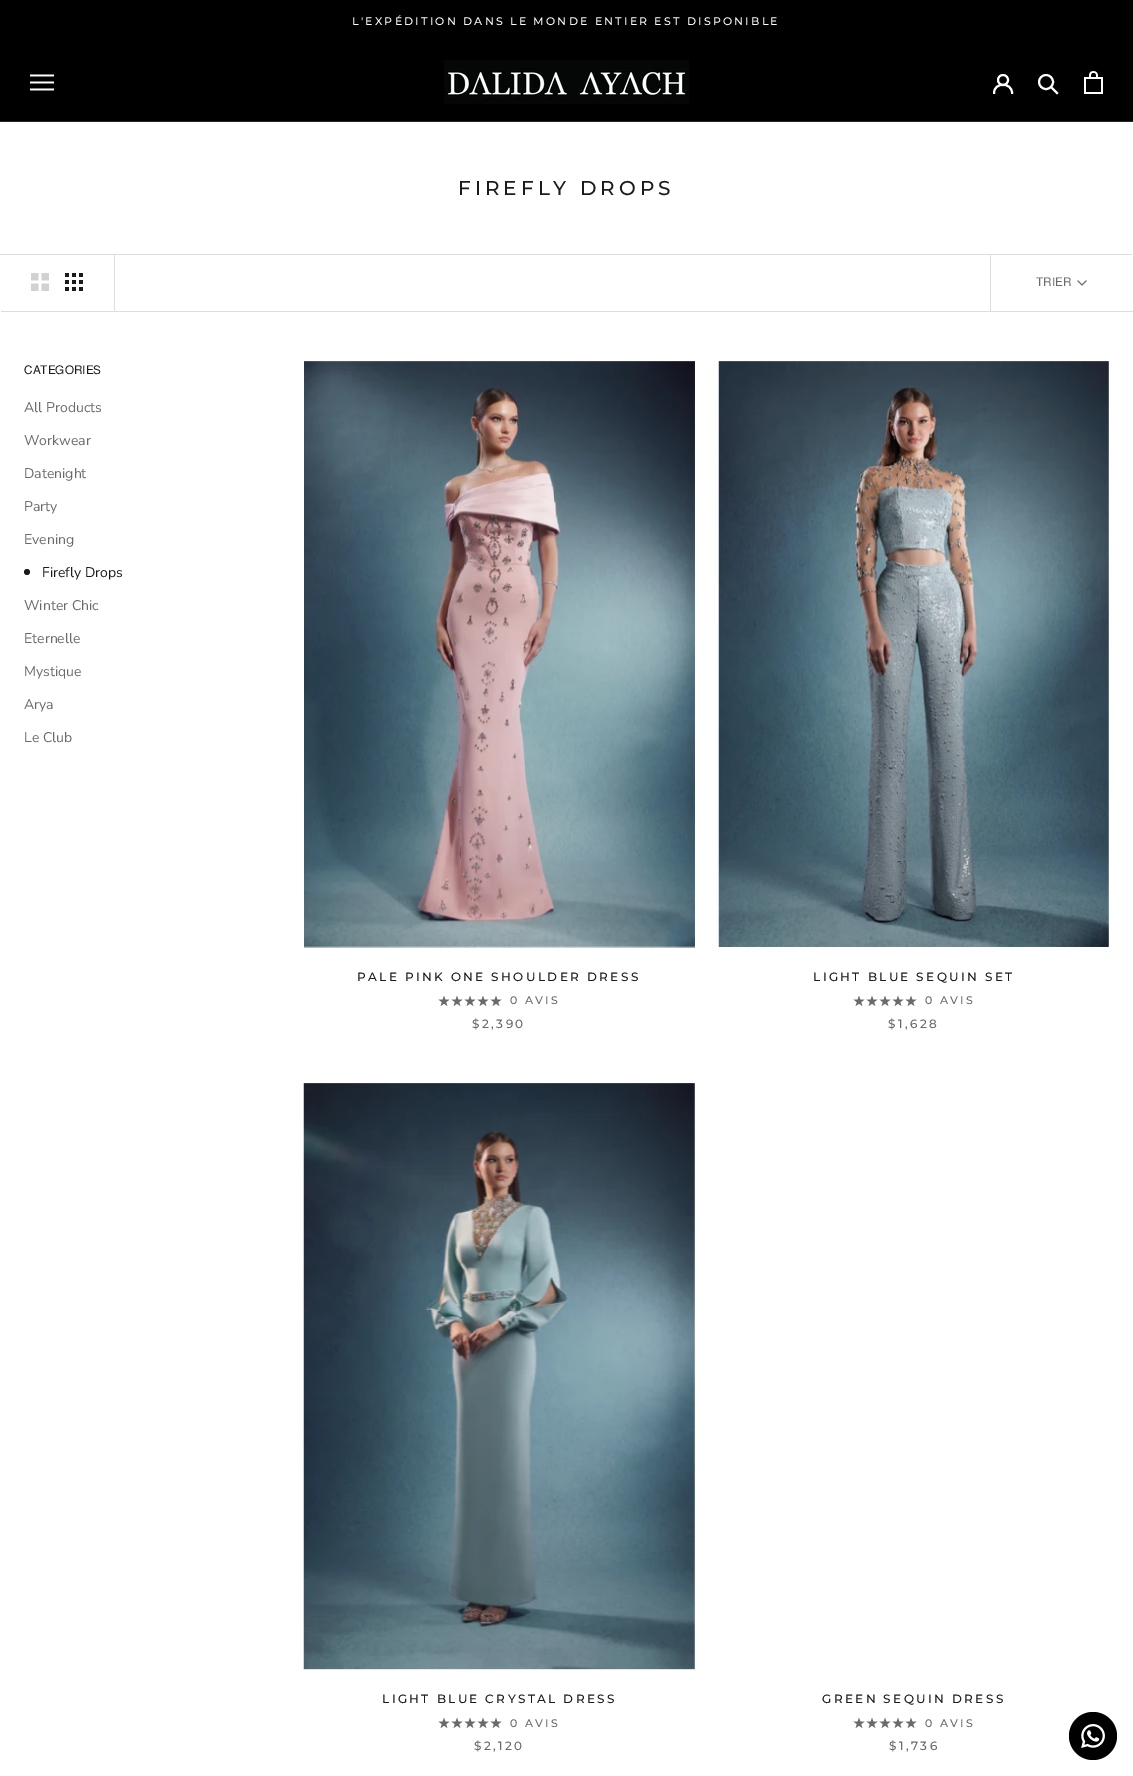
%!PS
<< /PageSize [1133 1776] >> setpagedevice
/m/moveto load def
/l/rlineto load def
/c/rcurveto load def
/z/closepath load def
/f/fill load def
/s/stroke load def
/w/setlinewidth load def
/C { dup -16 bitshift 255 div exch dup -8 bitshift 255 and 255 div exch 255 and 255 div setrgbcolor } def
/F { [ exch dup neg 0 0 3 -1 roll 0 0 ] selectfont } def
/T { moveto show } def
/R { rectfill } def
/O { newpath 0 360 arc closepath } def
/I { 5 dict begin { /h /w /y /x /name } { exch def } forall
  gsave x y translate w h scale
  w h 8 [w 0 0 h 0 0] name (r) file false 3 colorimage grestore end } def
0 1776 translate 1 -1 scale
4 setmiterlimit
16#FFFFFF C
0 0 1133 1776 R
16#000000 C
0 0 1133 121 R
/Montserrat-Medium 11 F
16#FFFFFF C
352 25 m 2.2 0 (L'EXPÉDITION DANS LE MONDE ENTIER EST DISPONIBLE) ashow
16#262626 C
0 121 1133 1 R
(1.rgb) 30 74 24 17 I
(2.rgb) 444 60 245 44 I
16#FFFFFF C
2 w
2 setlinecap
994 93 m 0 -11 18 -11 18 0 c s
0 setlinecap
1003 80 5 O s
2 setlinecap
1057 93 m -5.5 -5.5 l s
0 setlinecap
1046 82 7 O s
(3.rgb) 1084 71 19 23 I
/Montserrat-Medium 20 F
16#1C1B1B C
458 195 m 4 0 (FIREFLY DROPS) ashow
16#DDDDDD C
-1 254 m 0 56 l 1 0 l 0 -55 l 1132 0 l 0 -1 l z f
1 311 m 0 1 l 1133 0 l 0 -56 l -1 0 l 0 55 l z f
114 255 1 56 R
(4.rgb) 31 273 18 18 I
(5.rgb) 65 273 18 18 I
990 255 1 56 R
/Almarai-Regular 12 F
16#6A6A6A C
(TRIER) 1036 286 T
1 w
2 setlinecap
1086 281 m -4 4 l -4 -4 l s
16#1C1B1B C
(CATEGORIES) 24 374 T
/NunitoSans-Regular 14 F
16#6A6A6A C
(All Products) 24 412 T
(Workwear) 24 445 T
(Datenight) 24 478 T
(Party) 24 511 T
(Evening) 24 544 T
16#1C1B1B C
27 572 3 O f
(Firefly Drops) 42 577 T
16#6A6A6A C
(Winter Chic) 24 610 T
(Eternelle) 24 643 T
(Mystique) 24 676 T
(Arya) 24 709 T
(Le Club) 24 742 T
(6.rgb) 304 361 391 587 I
/Montserrat-Medium 12 F
16#1C1B1B C
357 981 m 2.4 0 (PALE PINK ONE SHOULDER DRESS) ashow
(7.rgb) 438 995 12 12 I
(7.rgb) 451 995 12 12 I
(7.rgb) 464 995 12 12 I
(7.rgb) 477 995 12 12 I
(7.rgb) 490 995 12 12 I
/Montserrat-Medium 11 F
16#6A6A6A C
510 1004 m 2.2 0 (0 AVIS) ashow
/Montserrat-Medium 12 F
472 1028 m 2.4 0 ($2,390) ashow
(8.rgb) 718 361 391 586 I
16#1C1B1B C
813 981 m 2.4 0 (LIGHT BLUE SEQUIN SET) ashow
(7.rgb) 853 995 12 12 I
(7.rgb) 866 995 12 12 I
(7.rgb) 879 995 12 12 I
(7.rgb) 892 995 12 12 I
(7.rgb) 905 995 12 12 I
/Montserrat-Medium 11 F
16#6A6A6A C
925 1004 m 2.2 0 (0 AVIS) ashow
/Montserrat-Medium 12 F
888 1028 m 2.4 0 ($1,628) ashow
(9.rgb) 303 1083 392 587 I
16#1C1B1B C
382 1703 m 2.4 0 (LIGHT BLUE CRYSTAL DRESS) ashow
(7.rgb) 438 1717 12 12 I
(7.rgb) 451 1717 12 12 I
(7.rgb) 464 1717 12 12 I
(7.rgb) 477 1717 12 12 I
(7.rgb) 490 1717 12 12 I
/Montserrat-Medium 11 F
16#6A6A6A C
510 1727 m 2.2 0 (0 AVIS) ashow
/Montserrat-Medium 12 F
474 1750 m 2.4 0 ($2,120) ashow
16#1C1B1B C
822 1703 m 2.4 0 (GREEN SEQUIN DRESS) ashow
(7.rgb) 853 1717 12 12 I
(7.rgb) 866 1717 12 12 I
(7.rgb) 879 1717 12 12 I
(7.rgb) 892 1717 12 12 I
(7.rgb) 905 1717 12 12 I
/Montserrat-Medium 11 F
16#6A6A6A C
925 1727 m 2.2 0 (0 AVIS) ashow
/Montserrat-Medium 12 F
889 1750 m 2.4 0 ($1,736) ashow
16#000000 C
1093 1736 24 O f
(10.rgb) 1081 1724 24 24 I
showpage
